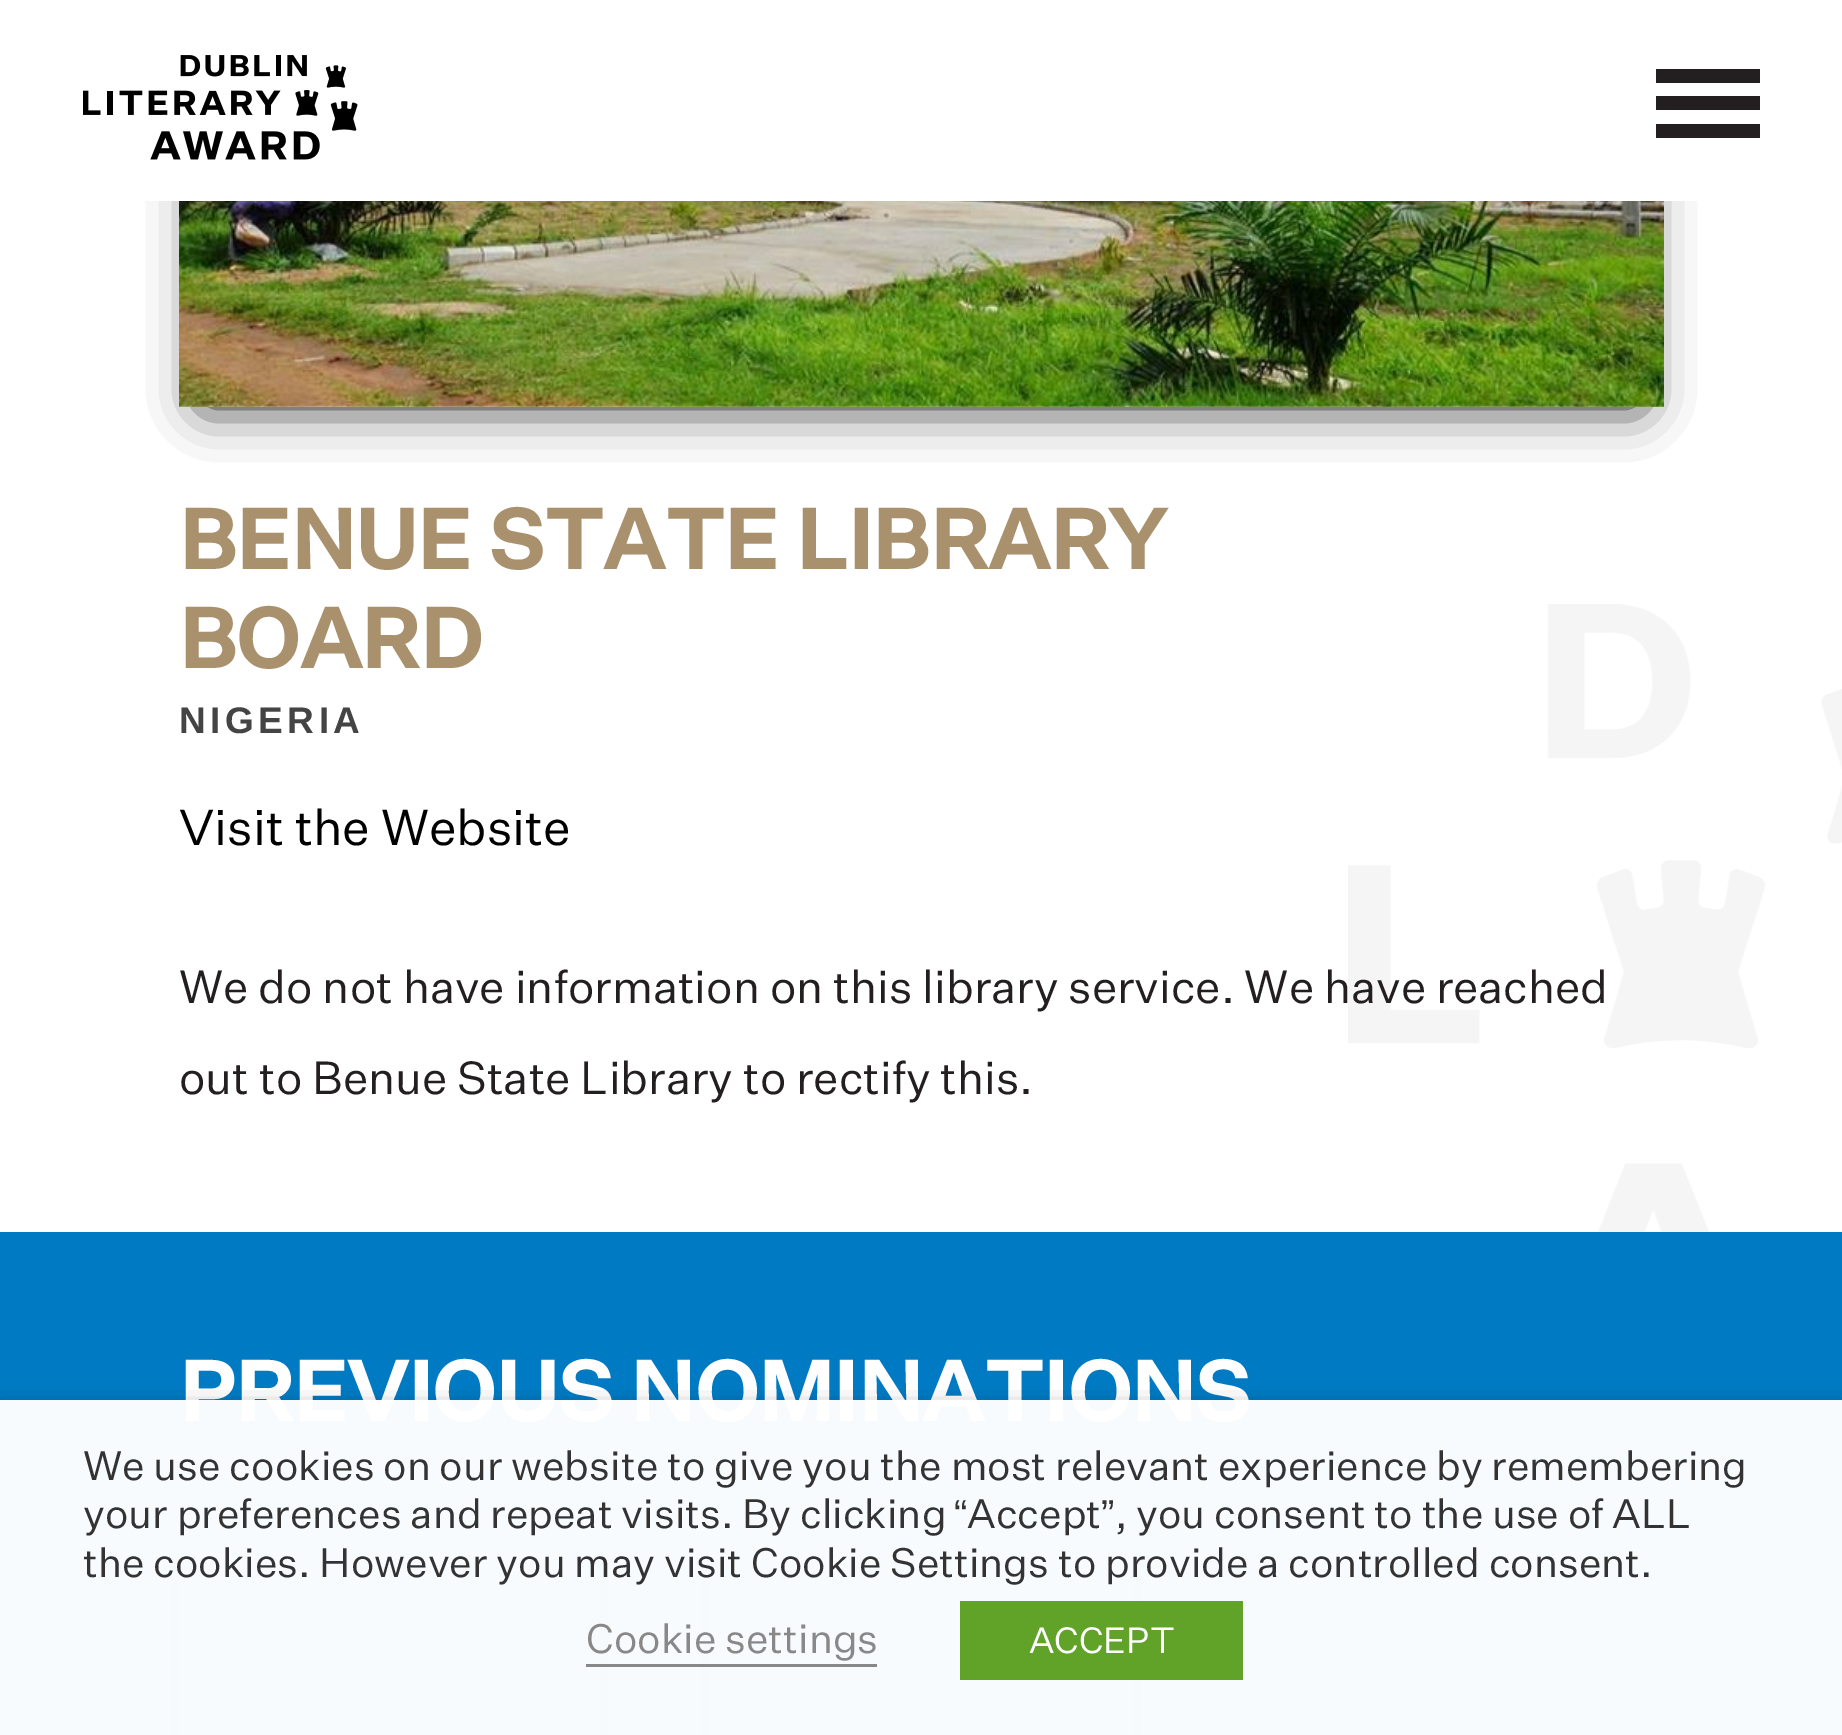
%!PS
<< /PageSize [1842 1735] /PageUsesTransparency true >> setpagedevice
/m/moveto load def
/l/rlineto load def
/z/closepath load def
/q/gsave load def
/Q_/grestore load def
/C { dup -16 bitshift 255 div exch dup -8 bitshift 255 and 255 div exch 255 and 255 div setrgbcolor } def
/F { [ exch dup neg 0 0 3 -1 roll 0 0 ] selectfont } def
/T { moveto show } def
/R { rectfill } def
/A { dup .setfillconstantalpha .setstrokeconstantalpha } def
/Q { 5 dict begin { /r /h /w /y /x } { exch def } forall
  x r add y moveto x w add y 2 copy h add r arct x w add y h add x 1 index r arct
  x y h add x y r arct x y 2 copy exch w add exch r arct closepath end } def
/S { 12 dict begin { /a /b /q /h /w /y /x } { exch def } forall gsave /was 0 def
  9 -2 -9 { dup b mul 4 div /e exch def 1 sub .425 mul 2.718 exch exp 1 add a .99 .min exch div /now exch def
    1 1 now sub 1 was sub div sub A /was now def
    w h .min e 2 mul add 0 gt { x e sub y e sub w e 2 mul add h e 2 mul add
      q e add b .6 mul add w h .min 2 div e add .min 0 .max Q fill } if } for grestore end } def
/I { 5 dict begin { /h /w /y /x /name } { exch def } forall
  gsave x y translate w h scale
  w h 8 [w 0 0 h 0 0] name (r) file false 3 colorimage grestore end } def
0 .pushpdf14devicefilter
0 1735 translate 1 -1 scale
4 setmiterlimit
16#FFFFFF C
0 0 1842 1735 R
16#000000 C
204 -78 1435 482 0 26 1 S
16#FFFFFF C
144 0 1555 201 R
(1.rgb) 83 55 275 105 I
16#231F20 C
1656 69 104 14 R
1656 96 104 14 R
1656 124 104 14 R
(2.rgb) 179 201 1485 206 I
/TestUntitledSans-Bold 82.5 F
16#AA916E C
(BENUE STATE LIBRARY) 179 569 T
(BOARD) 179 668 T
/LiberationSans-Bold 37 F
16#444444 C
179 733 m 4.5 0 (NIGERIA) ashow
/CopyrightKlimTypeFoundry-Regular 49.5 F
16#000000 C
(Visit the Website) 179 845 T
(3.rgb) 1348 604 494 628 I
/CopyrightKlimTypeFoundry-Regular 45.4 F
16#231F20 C
(We do not have information on this library service. We have reached) 179 1003 T
(out to Benue State Library to rectify this.) 179 1094 T
16#007AC3 C
0 1232 1842 503 R
/TestUntitledSans-Bold 82.5 F
16#FFFFFF C
(PREVIOUS NOMINATIONS) 179 1421 T
q
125 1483 m 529 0 l 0 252 l -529 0 l z 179 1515 m 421 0 l 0 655 l -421 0 l z eoclip newpath
16#000000 C
204 1562 371 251 0 26 1 S
Q_
q
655 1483 m 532 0 l 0 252 l -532 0 l z 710 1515 m 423 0 l 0 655 l -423 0 l z eoclip newpath
16#000000 C
734 1562 374 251 0 26 1 S
Q_
q
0 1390 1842 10 rectclip
16#000000 C
0 1414 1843 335 0 14 .5 S
Q_
0.97 A
0 1400 1842 335 R
/CopyrightKlimTypeFoundry-Regular 40.35 F
1 A
16#333333 C
(We use cookies on our website to give you the most relevant experience by remembering) 83 1480 T
(your preferences and repeat visits. By clicking) 83 1528 T
/LiberationSans-Regular 40.35 F
(“) 954 1528 T
/CopyrightKlimTypeFoundry-Regular 40.35 F
(Accept) 967 1528 T
/LiberationSans-Regular 40.35 F
(”) 1101 1528 T
/CopyrightKlimTypeFoundry-Regular 40.35 F
(, you consent to the use of ALL) 1115 1528 T
(the cookies. However you may visit Cookie Settings to provide a controlled consent.) 83 1577 T
16#898888 C
(Cookie settings) 586 1653 T
586 1664 291 3 R
16#61A229 C
960 1601 283 79 R
/CopyrightKlimTypeFoundry-Regular 35.75 F
16#FFFFFF C
(ACCEPT) 1029 1653 T
.poppdf14devicefilter showpage
